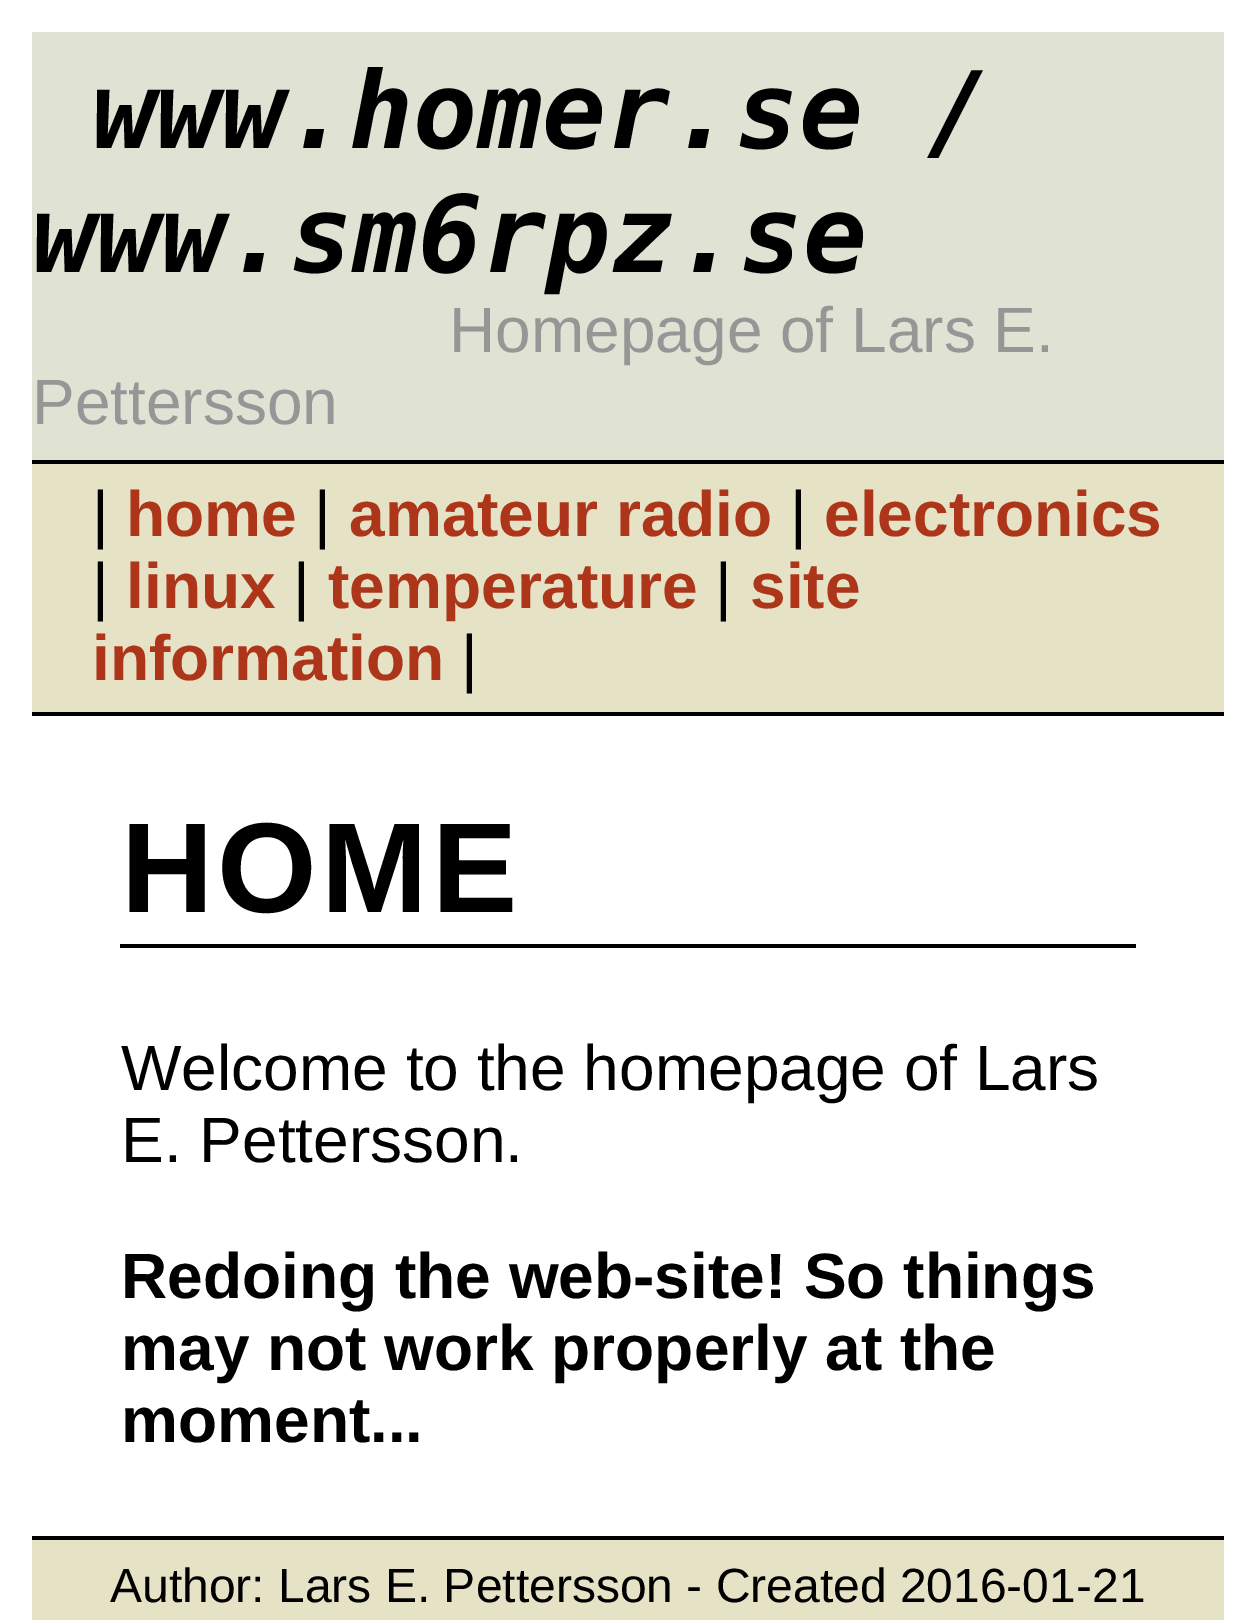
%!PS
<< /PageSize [1253 1620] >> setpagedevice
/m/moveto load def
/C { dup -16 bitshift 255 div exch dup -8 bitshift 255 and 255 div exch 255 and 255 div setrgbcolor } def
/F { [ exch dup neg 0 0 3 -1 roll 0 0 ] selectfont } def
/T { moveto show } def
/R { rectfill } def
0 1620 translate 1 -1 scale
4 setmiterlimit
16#FFFFFF C
0 0 1253 1620 R
16#E0E2D4 C
32 32 1192 428 R
/DejaVuSansMono-BoldItalic 106.75 F
16#000000 C
(www.homer.se /) 92 148 T
(www.sm6rpz.se) 32 272 T
/LiberationSans-Regular 64 F
16#969696 C
(Homepage of Lars E.) 449 352 T
(Pettersson) 32 424 T
16#E5E2C5 C
32 464 1192 248 R
16#000000 C
32 460 1192 4 R
32 712 1192 4 R
(|) 92 536 T
/LiberationSans-Bold 64 F
16#AD351A C
(home) 126 536 T
/LiberationSans-Regular 64 F
16#000000 C
(|) 314 536 T
/LiberationSans-Bold 64 F
16#AD351A C
(amateur radio) 349 536 T
/LiberationSans-Regular 64 F
16#000000 C
(|) 790 536 T
/LiberationSans-Bold 64 F
16#AD351A C
(electronics) 824 536 T
/LiberationSans-Regular 64 F
16#000000 C
(|) 92 608 T
/LiberationSans-Bold 64 F
16#AD351A C
(linux) 126 608 T
/LiberationSans-Regular 64 F
16#000000 C
(|) 293 608 T
/LiberationSans-Bold 64 F
16#AD351A C
(temperature) 328 608 T
/LiberationSans-Regular 64 F
16#000000 C
(|) 715 608 T
/LiberationSans-Bold 64 F
16#AD351A C
(site) 750 608 T
(information) 92 680 T
/LiberationSans-Regular 64 F
16#000000 C
(|) 461 680 T
120 944 1016 4 R
/LiberationSans-Bold 128 F
121 912 m 4 0 (HOME) ashow
/LiberationSans-Regular 64 F
(Welcome to the homepage of Lars) 121 1090 T
(E. Pettersson.) 121 1162 T
/LiberationSans-Bold 64 F
(Redoing the web-site! So things) 121 1298 T
(may not work properly at the) 121 1370 T
(moment...) 121 1442 T
16#E5E2C5 C
32 1540 1192 80 R
16#000000 C
32 1536 1192 4 R
/LiberationSans-Regular 48 F
(Author: Lars E. Pettersson - Created 2016-01-21) 110 1602 T
showpage
